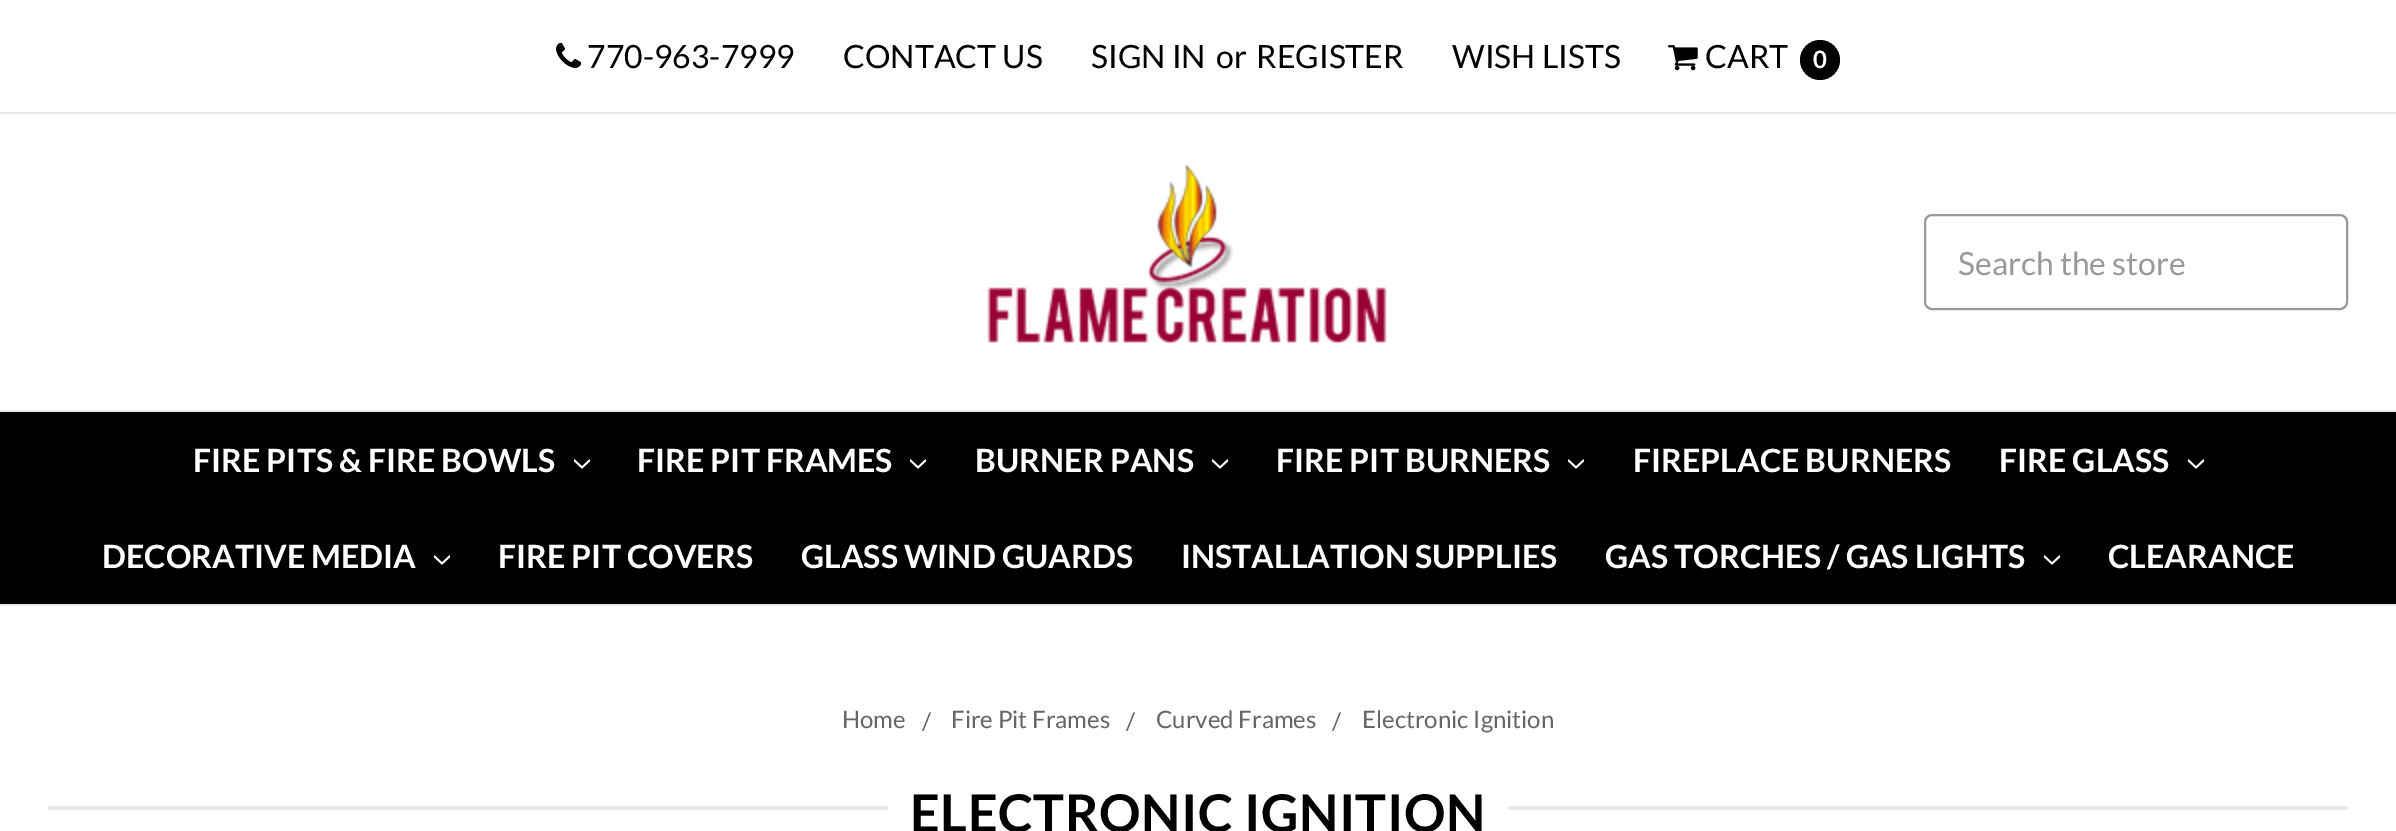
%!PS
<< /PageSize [2396 831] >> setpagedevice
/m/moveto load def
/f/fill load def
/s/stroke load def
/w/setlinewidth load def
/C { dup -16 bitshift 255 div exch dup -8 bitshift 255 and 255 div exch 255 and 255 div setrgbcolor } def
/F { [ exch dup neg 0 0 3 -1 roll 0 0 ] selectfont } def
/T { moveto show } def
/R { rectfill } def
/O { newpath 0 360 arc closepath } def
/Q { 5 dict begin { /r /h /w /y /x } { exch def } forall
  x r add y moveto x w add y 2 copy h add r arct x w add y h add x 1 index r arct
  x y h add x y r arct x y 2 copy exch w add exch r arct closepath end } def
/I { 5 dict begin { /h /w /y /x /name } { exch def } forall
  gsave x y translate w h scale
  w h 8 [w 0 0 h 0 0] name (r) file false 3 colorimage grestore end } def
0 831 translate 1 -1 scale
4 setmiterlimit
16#FFFFFF C
0 0 2396 831 R
16#E8E8E8 C
0 112 2396 2 R
(1.rgb) 556 42 26 26 I
/Lato-Regular 32 F
16#000000 C
(770-963-7999) 587 68 T
(CONTACT US) 843 68 T
(SIGN IN) 1091 68 T
(or) 1216 68 T
(REGISTER) 1256 68 T
(WISH LISTS) 1452 68 T
(2.rgb) 1668 45 30 26 I
(CART) 1705 68 T
1820 60 20 O f
/Lato-Bold 24 F
16#FFFFFF C
(0) 1813 68 T
(3.rgb) 987 164 400 180 I
16#999999 C
2 w
1925 215 422 94 7 Q s
/Lato-Regular 32 F
(Search the store) 1958 275 T
16#000000 C
0 412 2396 192 R
16#E8E8E8 C
0 410 2396 2 R
0 604 2396 2 R
/Lato-Bold 32 F
16#FFFFFF C
(FIRE PITS & FIRE BOWLS) 193 472 T
(4.rgb) 574 459 16 10 I
(FIRE PIT FRAMES) 637 472 T
(4.rgb) 910 459 16 10 I
(BURNER PANS) 975 472 T
(4.rgb) 1212 459 16 10 I
(FIRE PIT BURNERS) 1276 472 T
(4.rgb) 1568 459 16 10 I
(FIREPLACE BURNERS) 1633 472 T
(FIRE GLASS) 1999 472 T
(4.rgb) 2188 459 16 10 I
(DECORATIVE MEDIA) 102 568 T
(4.rgb) 434 555 16 10 I
(FIRE PIT COVERS) 498 568 T
(GLASS WIND GUARDS) 801 568 T
(INSTALLATION SUPPLIES) 1181 568 T
(GAS TORCHES / GAS LIGHTS) 1605 568 T
(4.rgb) 2044 555 16 10 I
(CLEARANCE) 2108 568 T
/Lato-Regular 24 F
16#666666 C
(Home) 842 728 T
(/) 922 730 T
(Fire Pit Frames) 951 728 T
(/) 1126 730 T
(Curved Frames) 1156 728 T
(/) 1332 730 T
(Electronic Ignition) 1362 728 T
16#E8E8E8 C
48 806 840 4 R
/Lato-Bold 52 F
16#000000 C
910 832 m .5 0 (ELECTRONIC IGNITION) ashow
16#E8E8E8 C
1508 806 840 4 R
showpage
